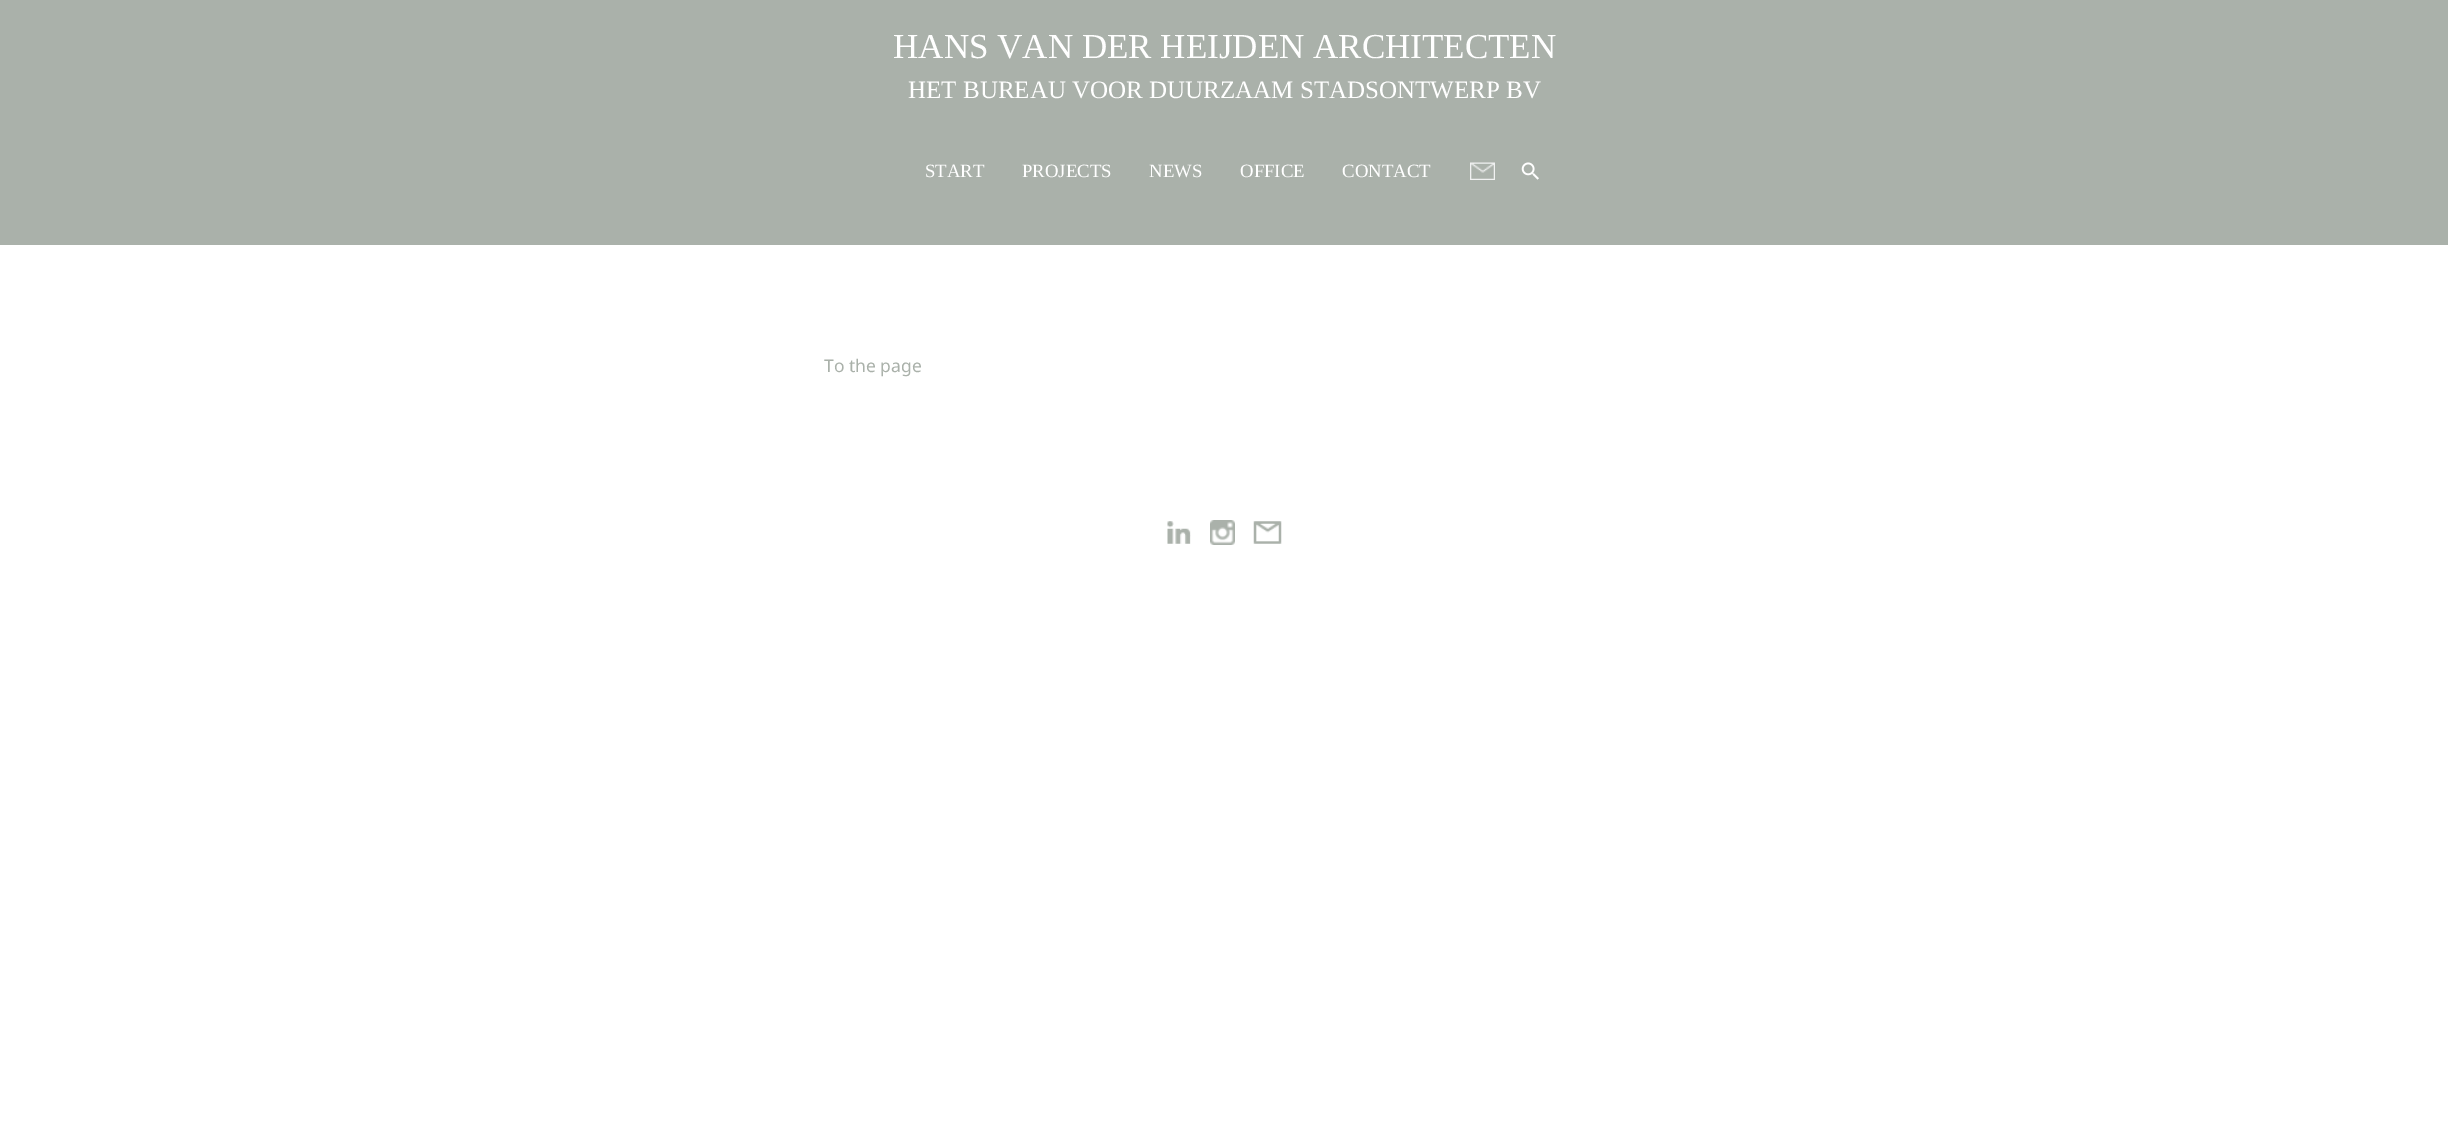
%!PS
<< /PageSize [2448 1126] >> setpagedevice
/C { dup -16 bitshift 255 div exch dup -8 bitshift 255 and 255 div exch 255 and 255 div setrgbcolor } def
/F { [ exch dup neg 0 0 3 -1 roll 0 0 ] selectfont } def
/T { moveto show } def
/R { rectfill } def
/I { 5 dict begin { /h /w /y /x /name } { exch def } forall
  gsave x y translate w h scale
  w h 8 [w 0 0 h 0 0] name (r) file false 3 colorimage grestore end } def
0 1126 translate 1 -1 scale
4 setmiterlimit
16#FFFFFF C
0 0 2448 1126 R
16#AAB1AA C
0 0 2448 131 R
/LiberationSerif-Regular 35 F
16#FFFFFF C
(HANS VAN DER HEIJDEN ARCHITECTEN) 893 58 T
/LiberationSerif-Regular 25 F
(HET BUREAU VOOR DUURZAAM STADSONTWERP BV) 908 98 T
16#AAB1AA C
0 131 2448 114 R
/LiberationSerif-Regular 18.75 F
16#FFFFFF C
(START) 925 177 T
(PROJECTS) 1022 177 T
(NEWS) 1149 177 T
(OFFICE) 1240 177 T
(CONTACT) 1342 177 T
(1.rgb) 1470 162 25 18 I
(2.rgb) 1521 162 18 18 I
/NotoSans-Regular 17.5 F
16#AAB1AA C
(To the page) 824 372 T
(3.rgb) 1167 521 24 23 I
(4.rgb) 1210 520 25 25 I
(5.rgb) 1253 521 29 23 I
showpage
